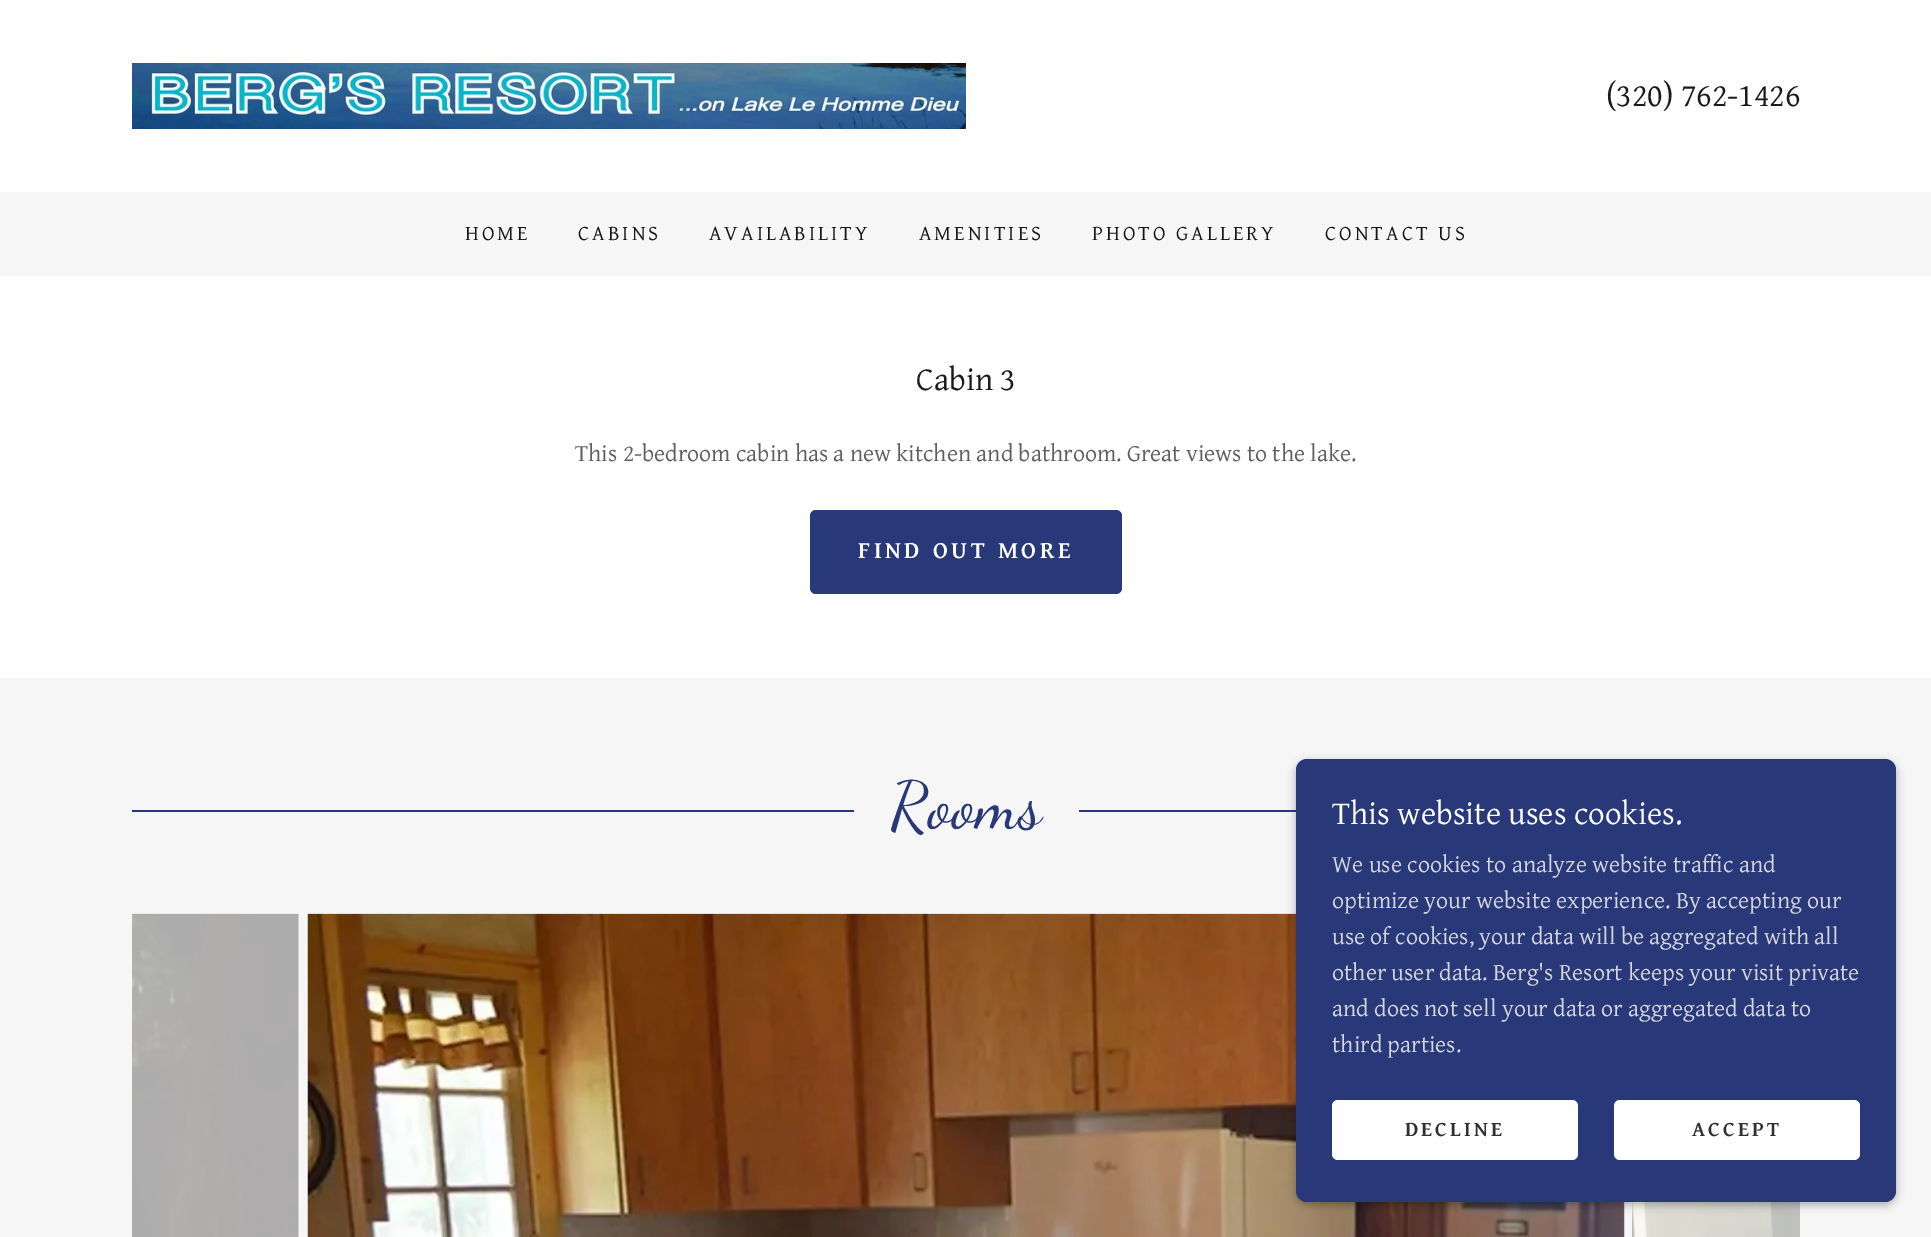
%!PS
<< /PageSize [1931 1237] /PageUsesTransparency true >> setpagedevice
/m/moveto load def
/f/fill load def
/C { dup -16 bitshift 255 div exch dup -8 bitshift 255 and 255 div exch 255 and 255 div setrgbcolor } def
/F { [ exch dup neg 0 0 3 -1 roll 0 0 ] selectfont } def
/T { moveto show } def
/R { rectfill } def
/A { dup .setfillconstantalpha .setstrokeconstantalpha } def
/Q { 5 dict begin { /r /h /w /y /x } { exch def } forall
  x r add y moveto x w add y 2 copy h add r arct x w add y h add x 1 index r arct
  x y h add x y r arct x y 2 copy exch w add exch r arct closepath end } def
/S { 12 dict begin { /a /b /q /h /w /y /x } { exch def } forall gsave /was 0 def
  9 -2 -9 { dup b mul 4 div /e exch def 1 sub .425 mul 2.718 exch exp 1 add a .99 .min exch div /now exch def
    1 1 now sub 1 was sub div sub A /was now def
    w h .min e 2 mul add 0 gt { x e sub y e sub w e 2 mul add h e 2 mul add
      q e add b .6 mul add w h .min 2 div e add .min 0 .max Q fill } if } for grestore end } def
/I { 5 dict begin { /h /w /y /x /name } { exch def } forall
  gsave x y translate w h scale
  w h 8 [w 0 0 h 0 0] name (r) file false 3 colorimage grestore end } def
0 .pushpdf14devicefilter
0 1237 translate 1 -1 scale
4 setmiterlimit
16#F6F6F6 C
0 0 1931 1237 R
16#FFFFFF C
0 0 1931 192 R
(1.rgb) 132 63 834 66 I
/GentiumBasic-Regular 33 F
16#1B1B1B C
(\(320\) 762-1426) 1606 106 T
/GentiumBasic-Regular 21 F
16#151515 C
465 240 m 3 0 (HOME) ashow
578 240 m 3 0 (CABINS) ashow
709 240 m 3 0 (AVAILABILITY) ashow
919 240 m 3 0 (AMENITIES) ashow
1092 240 m 3 0 (PHOTO GALLERY) ashow
1325 240 m 3 0 (CONTACT US) ashow
16#FFFFFF C
0 276 1931 402 R
/GentiumBasic-Regular 33 F
16#1B1B1B C
(Cabin 3) 916 390 T
/GentiumBasic-Regular 24 F
16#5E5E5E C
(This 2-bedroom cabin has a new kitchen and bathroom. Great views to the lake.) 575 461 T
16#283878 C
810 510 312 84 6 Q f
/GentiumBasic-Bold 24 F
16#FFFFFF C
858 558 m 3.5 0 (FIND OUT MORE) ashow
16#283878 C
132 810 722 2 R
/DancingScript-Regular 66 F
(Rooms) 890 827 T
1079 810 217 2 R
(2.rgb) 132 913 167 324 I
(3.rgb) 307 913 1318 324 I
(4.rgb) 1632 1202 168 35 I
16#000000 C
1296 762 600 443 11 4.5 .3 S
16#283878 C
1296 759 600 443 11 Q f
/GentiumBasic-Regular 33 F
16#FFFFFF C
(This website uses cookies.) 1332 824 T
/GentiumBasic-Regular 24 F
16#D5D6DC C
(We use cookies to analyze website traffic and) 1332 872 T
(optimize your website experience. By accepting our) 1332 908 T
(use of cookies, your data will be aggregated with all) 1332 944 T
(other user data. Berg's Resort keeps your visit private) 1332 980 T
(and does not sell your data or aggregated data to) 1332 1016 T
(third parties.) 1332 1052 T
16#FFFFFF C
1332 1100 246 60 6 Q f
/GentiumBasic-Bold 21 F
16#303030 C
1405 1136 m 3 0 (DECLINE) ashow
16#FFFFFF C
1614 1100 246 60 6 Q f
16#303030 C
1692 1136 m 3 0 (ACCEPT) ashow
.poppdf14devicefilter showpage
